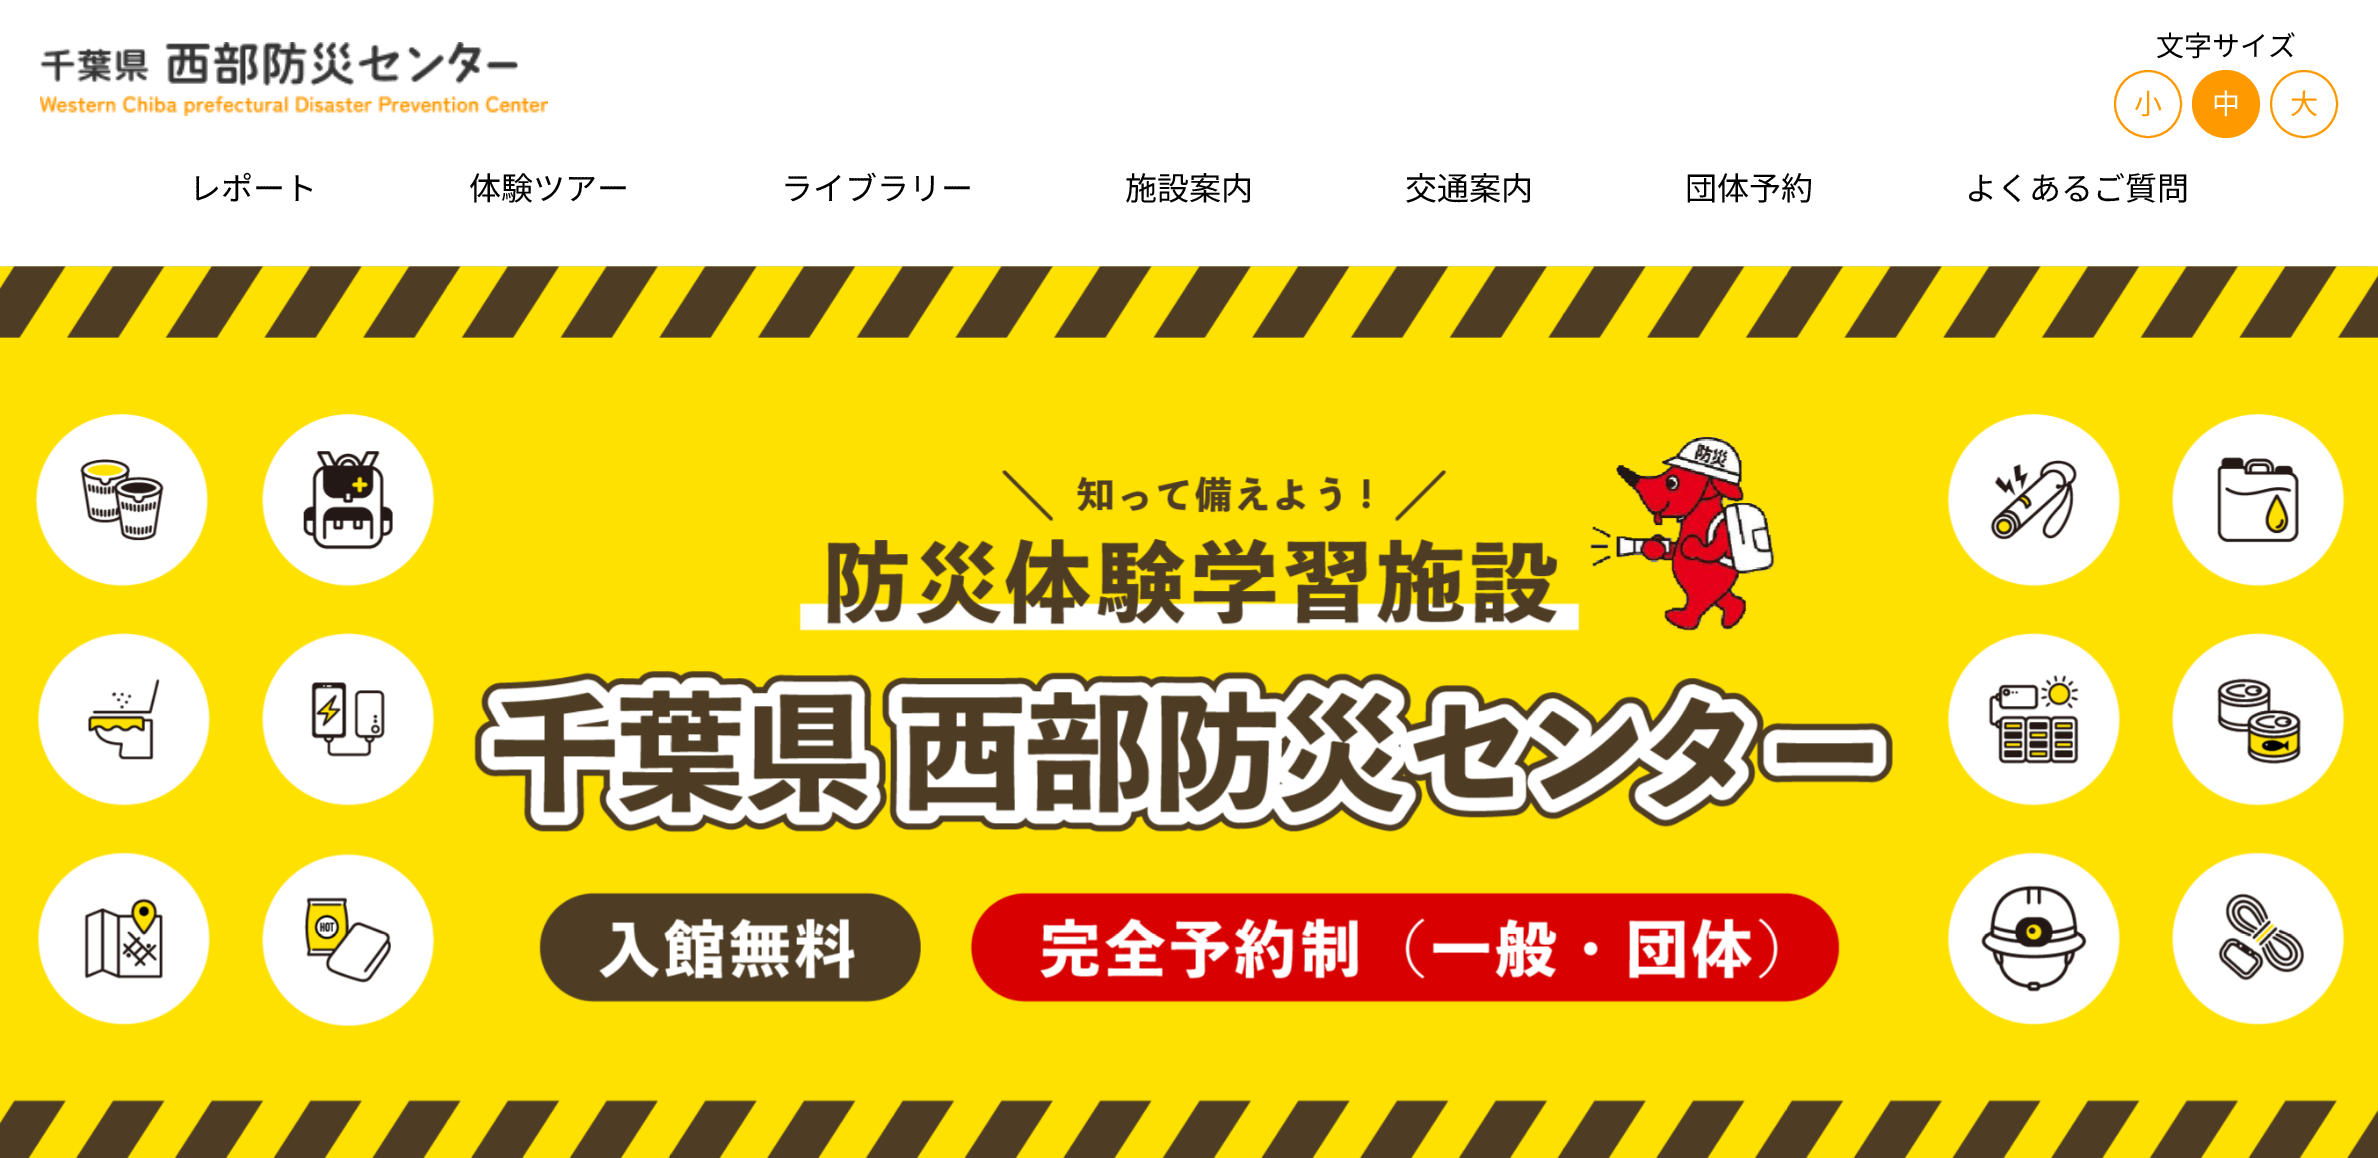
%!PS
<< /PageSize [2378 1158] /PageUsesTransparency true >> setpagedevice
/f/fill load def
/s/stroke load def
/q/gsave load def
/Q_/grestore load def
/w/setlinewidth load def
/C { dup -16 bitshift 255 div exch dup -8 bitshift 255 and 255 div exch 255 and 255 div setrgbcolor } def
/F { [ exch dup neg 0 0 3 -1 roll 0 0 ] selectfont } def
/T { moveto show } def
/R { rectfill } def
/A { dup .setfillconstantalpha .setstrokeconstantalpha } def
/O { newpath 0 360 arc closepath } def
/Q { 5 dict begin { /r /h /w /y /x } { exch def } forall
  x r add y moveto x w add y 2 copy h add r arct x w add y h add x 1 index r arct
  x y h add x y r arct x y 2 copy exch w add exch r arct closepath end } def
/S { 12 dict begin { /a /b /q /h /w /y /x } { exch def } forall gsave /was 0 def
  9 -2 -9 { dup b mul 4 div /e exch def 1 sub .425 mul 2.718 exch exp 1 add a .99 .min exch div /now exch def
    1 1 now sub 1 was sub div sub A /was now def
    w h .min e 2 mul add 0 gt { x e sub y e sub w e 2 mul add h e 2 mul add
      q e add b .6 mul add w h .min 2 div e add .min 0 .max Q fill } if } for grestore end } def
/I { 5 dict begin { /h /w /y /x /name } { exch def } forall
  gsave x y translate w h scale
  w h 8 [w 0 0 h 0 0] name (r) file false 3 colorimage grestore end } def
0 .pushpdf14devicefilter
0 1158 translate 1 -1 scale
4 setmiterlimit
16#FFFFFF C
0 0 2378 1158 R
q
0 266 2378 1 rectclip
16#000000 C
0 0 2378 266 0 10 .5 S
Q_
(1.rgb) 40 42 508 74 I
/NotoSansJP-Regular 28 F
16#000000 C
(文字サイズ) 2156 56 T
16#FF9900 C
2 w
2148 104 33 O s
(小) 2134 114 T
2226 104 34 O f
16#FFFFFF C
(中) 2212 114 T
16#FF9900 C
2304 104 33 O s
(大) 2290 114 T
/NotoSansJP-Regular 32 F
16#000000 C
(レポート) 189 200 T
(体験ツアー) 469 200 T
(ライブラリー) 781 200 T
(施設案内) 1125 200 T
(交通案内) 1405 200 T
(団体予約) 1685 200 T
(よくあるご質問) 1965 200 T
(2.rgb) 0 266 2378 892 I
.poppdf14devicefilter showpage
